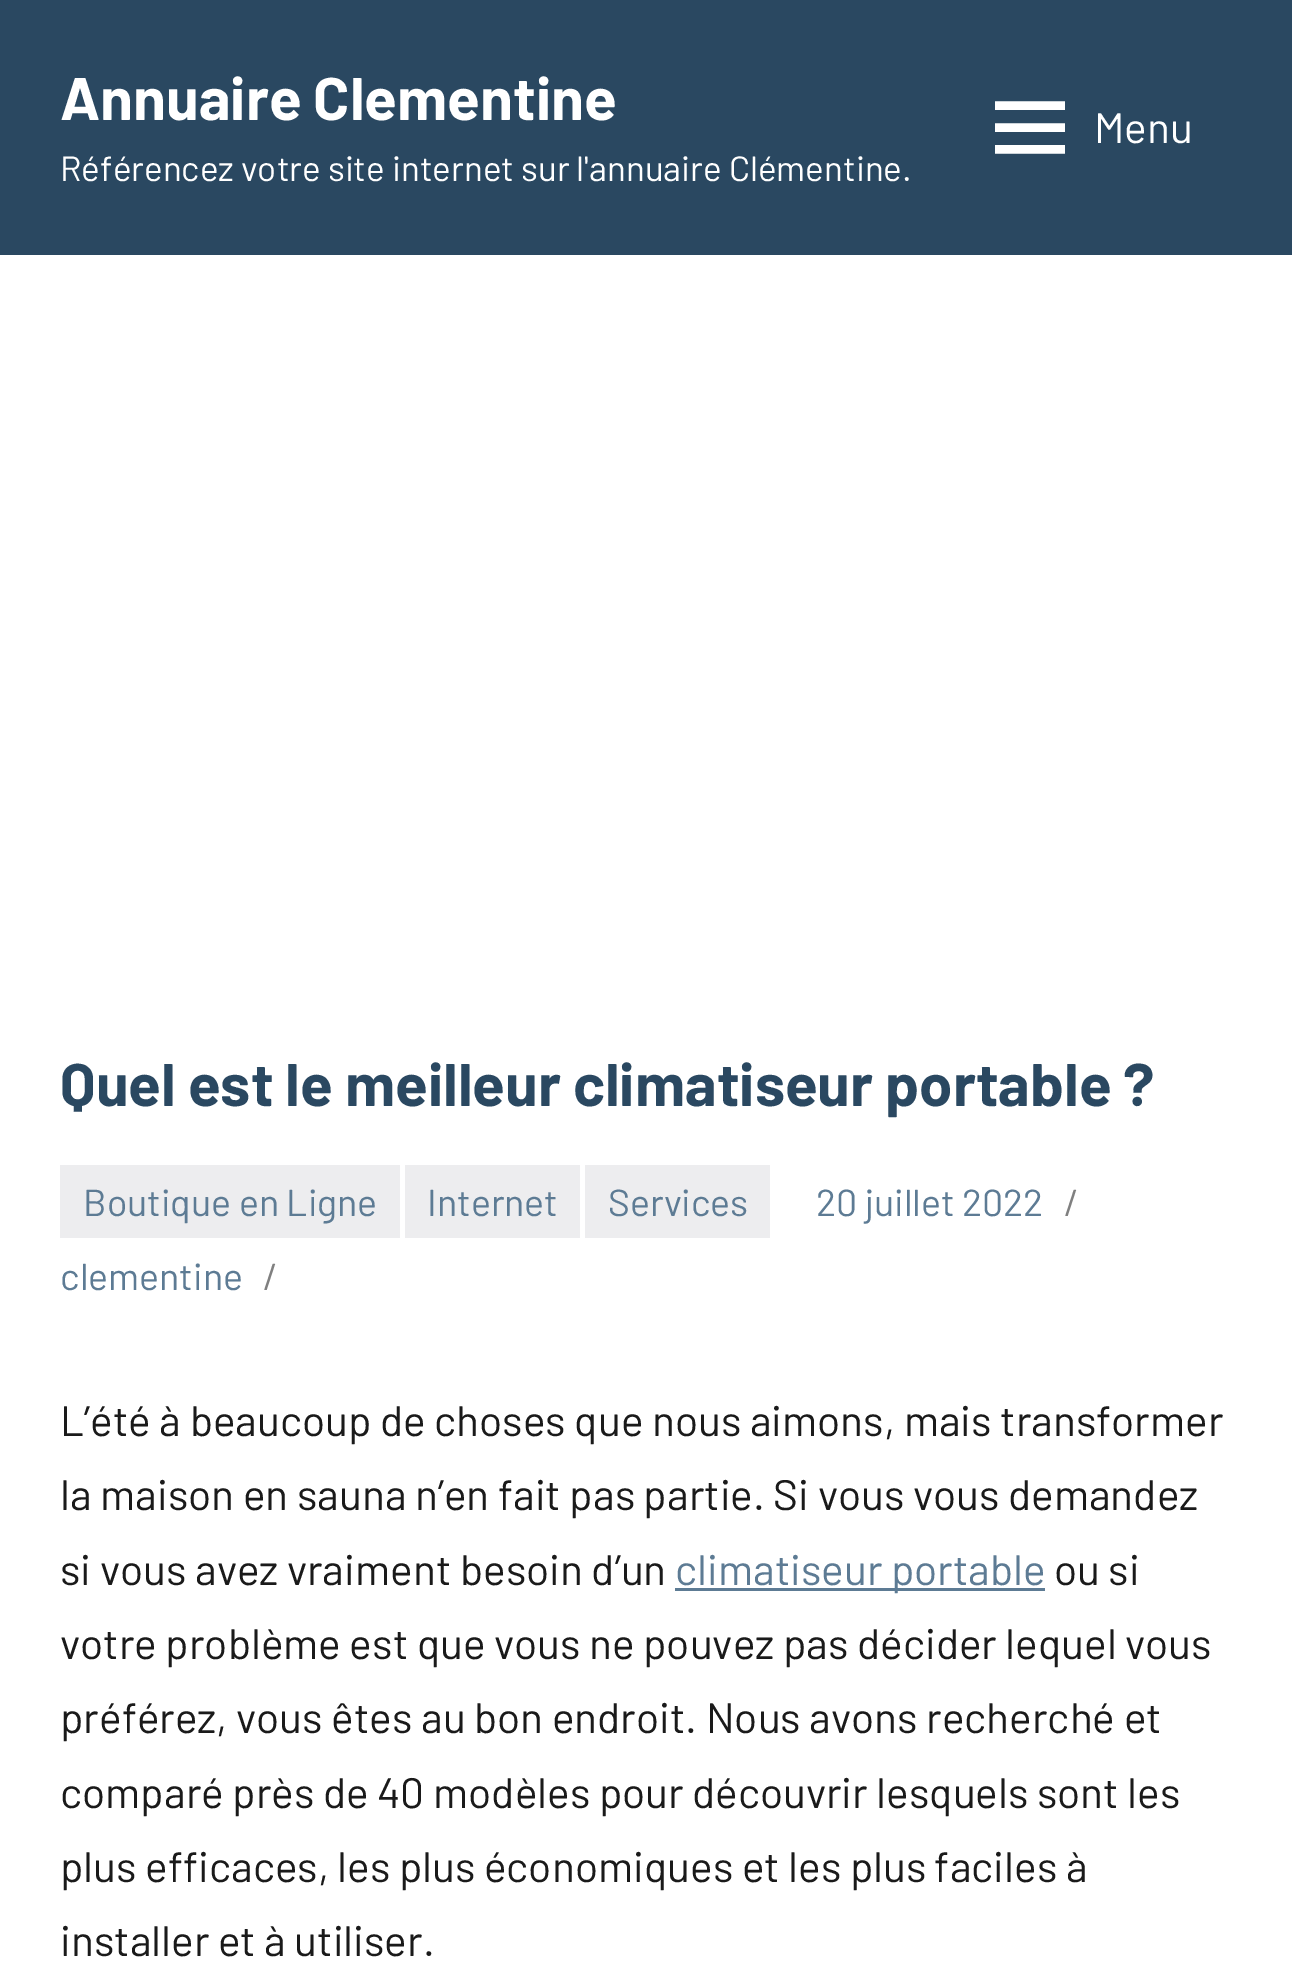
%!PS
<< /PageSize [1292 1977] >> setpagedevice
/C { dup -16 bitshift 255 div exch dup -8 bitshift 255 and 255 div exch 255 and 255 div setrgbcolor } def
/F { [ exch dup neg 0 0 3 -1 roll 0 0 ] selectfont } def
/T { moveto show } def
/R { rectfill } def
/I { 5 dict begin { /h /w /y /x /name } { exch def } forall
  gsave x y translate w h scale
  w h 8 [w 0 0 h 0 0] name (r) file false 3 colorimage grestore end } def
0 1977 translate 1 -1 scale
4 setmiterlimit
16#2A4861 C
0 0 1292 1977 R
/Barlow-Bold 60 F
16#FFFFFF C
(Annuaire Clementine) 60 120 T
/Barlow-Regular 35 F
(Référencez votre site internet sur l'annuaire Clémentine.) 60 181 T
(1.rgb) 995 101 70 53 I
/Barlow-Regular 42.5 F
(Menu) 1094 143 T
0 255 1292 1722 R
/Barlow-Bold 60 F
16#2A4861 C
(Quel est le meilleur climatiseur portable ?) 60 1106 T
16#EDEDEF C
60 1165 340 73 R
/Barlow-Regular 37.5 F
16#5D7B94 C
(Boutique en Ligne) 83 1216 T
16#EDEDEF C
405 1165 175 73 R
16#5D7B94 C
(Internet) 427 1216 T
16#EDEDEF C
585 1165 185 73 R
16#5D7B94 C
(Services) 608 1216 T
(20 juillet 2022) 816 1216 T
16#808080 C
(/) 1064 1216 T
16#5D7B94 C
(clementine) 60 1290 T
16#808080 C
(/) 263 1290 T
/Barlow-Regular 42.5 F
16#1A1A1A C
(L’été à beaucoup de choses que nous aimons, mais transformer) 60 1436 T
(la maison en sauna n’en fait pas partie. Si vous vous demandez) 60 1510 T
(si vous avez vraiment besoin d’un) 60 1585 T
16#5D7B94 C
675 1588 370 3 R
(climatiseur portable) 675 1585 T
16#1A1A1A C
(ou si) 1054 1585 T
(votre problème est que vous ne pouvez pas décider lequel vous) 60 1659 T
(préférez, vous êtes au bon endroit. Nous avons recherché et) 60 1733 T
(comparé près de 40 modèles pour découvrir lesquels sont les) 60 1808 T
(plus efficaces, les plus économiques et les plus faciles à) 60 1882 T
(installer et à utiliser.) 60 1956 T
showpage
